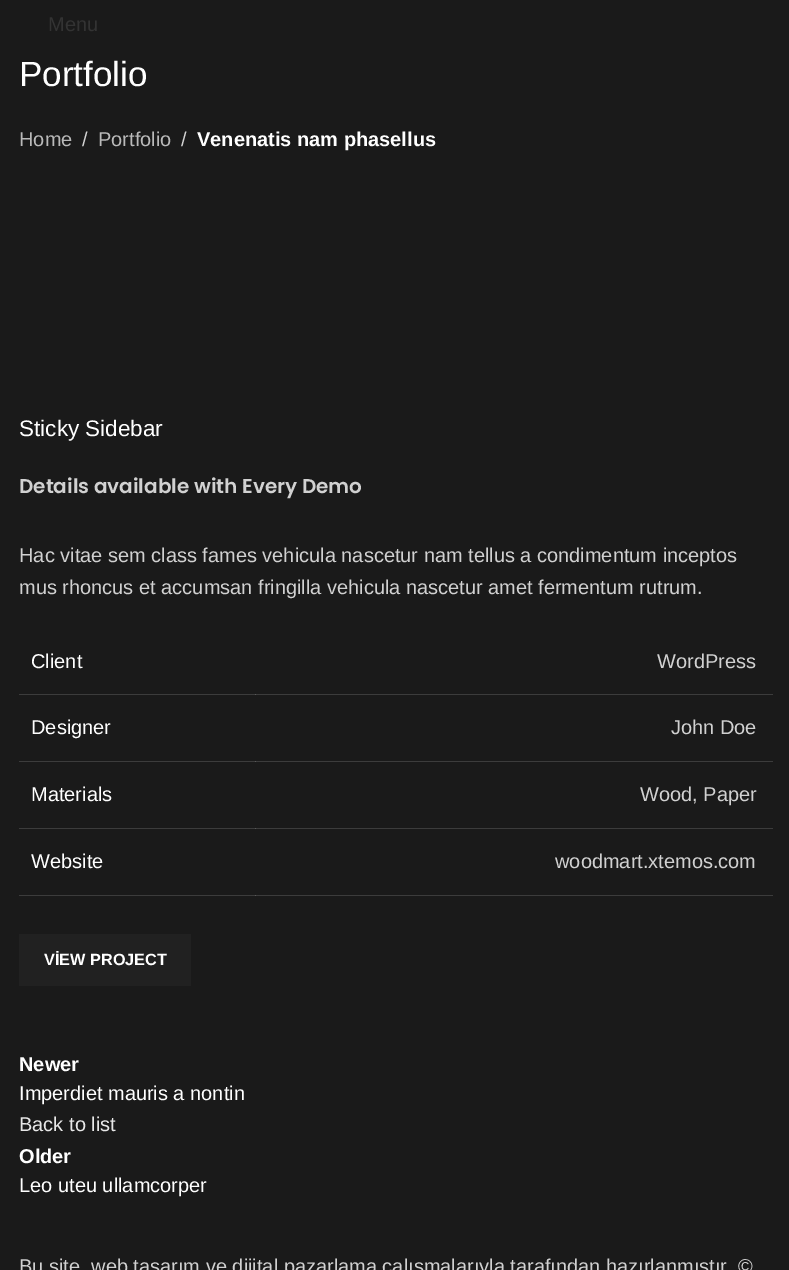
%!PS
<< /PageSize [789 1270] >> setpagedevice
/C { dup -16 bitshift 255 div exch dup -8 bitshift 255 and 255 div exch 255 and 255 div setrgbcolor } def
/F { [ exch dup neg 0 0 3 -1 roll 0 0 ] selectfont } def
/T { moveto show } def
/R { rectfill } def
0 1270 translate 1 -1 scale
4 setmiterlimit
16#1A1A1A C
0 0 789 1270 R
16#3C3C3C C
19 694 754 1 R
19 761 754 1 R
19 828 754 1 R
19 895 754 1 R
/LiberationSans-Regular 20 F
16#333333 C
(Menu) 48 31 T
/LiberationSans-Regular 35 F
16#FFFFFF C
(Portfolio) 19 86 T
/LiberationSans-Regular 20 F
16#BABABA C
(Home) 19 146 T
16#D1D1D1 C
(/) 82 146 T
16#BABABA C
(Portfolio) 98 146 T
16#D1D1D1 C
(/) 181 146 T
/LiberationSans-Bold 20 F
16#FFFFFF C
(Venenatis nam phasellus) 197 146 T
/LiberationSans-Regular 22.5 F
(Sticky Sidebar) 19 436 T
/Poppins-SemiBold 20 F
16#D1D1D1 C
(Details available with Every Demo) 19 493 T
/LiberationSans-Regular 20 F
(Hac vitae sem class fames vehicula nascetur nam tellus a condimentum inceptos) 19 562 T
(mus rhoncus et accumsan fringilla vehicula nascetur amet fermentum rutrum.) 19 594 T
16#FFFFFF C
(Client) 31 668 T
16#595959 C
255 694 1 1 R
16#D1D1D1 C
(WordPress) 657 668 T
16#FFFFFF C
(Designer) 31 734 T
16#595959 C
255 761 1 1 R
16#D1D1D1 C
(John Doe) 671 734 T
16#FFFFFF C
(Materials) 31 801 T
16#595959 C
255 828 1 1 R
16#D1D1D1 C
(Wood, Paper) 640 801 T
16#FFFFFF C
(Website) 31 868 T
16#595959 C
255 895 1 1 R
16#D1D1D1 C
(woodmart.xtemos.com) 555 868 T
16#212121 C
19 934 172 52 R
/LiberationSans-Bold 16.25 F
16#FFFFFF C
(VİEW PROJECT) 44 965 T
/LiberationSans-Bold 20 F
(Newer) 19 1071 T
/LiberationSans-Regular 20 F
(Imperdiet mauris a nontin) 19 1100 T
16#E8E8E8 C
(Back to list) 19 1131 T
/LiberationSans-Bold 20 F
16#FFFFFF C
(Older) 19 1163 T
/LiberationSans-Regular 20 F
(Leo uteu ullamcorper) 19 1192 T
16#D1D1D1 C
(Bu site, web tasarım ve dijital pazarlama çalışmalarıyla tarafından hazırlanmıştır. ©) 19 1273 T
showpage
